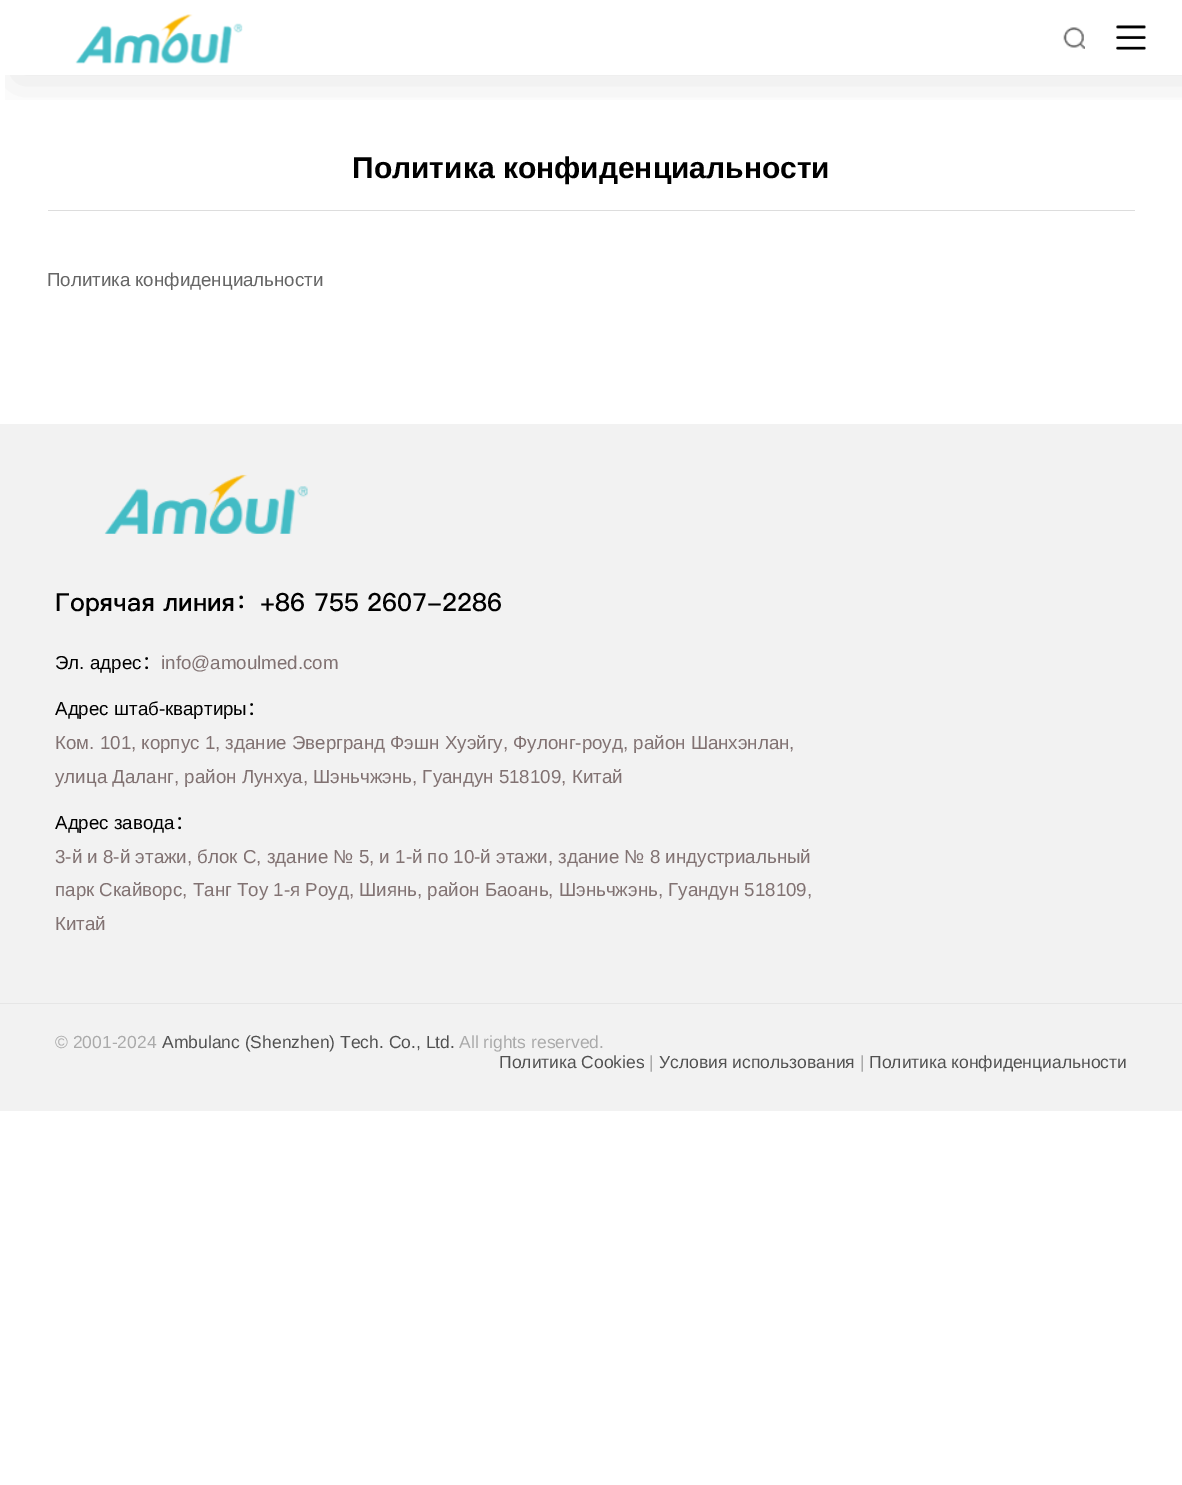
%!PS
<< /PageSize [1182 1485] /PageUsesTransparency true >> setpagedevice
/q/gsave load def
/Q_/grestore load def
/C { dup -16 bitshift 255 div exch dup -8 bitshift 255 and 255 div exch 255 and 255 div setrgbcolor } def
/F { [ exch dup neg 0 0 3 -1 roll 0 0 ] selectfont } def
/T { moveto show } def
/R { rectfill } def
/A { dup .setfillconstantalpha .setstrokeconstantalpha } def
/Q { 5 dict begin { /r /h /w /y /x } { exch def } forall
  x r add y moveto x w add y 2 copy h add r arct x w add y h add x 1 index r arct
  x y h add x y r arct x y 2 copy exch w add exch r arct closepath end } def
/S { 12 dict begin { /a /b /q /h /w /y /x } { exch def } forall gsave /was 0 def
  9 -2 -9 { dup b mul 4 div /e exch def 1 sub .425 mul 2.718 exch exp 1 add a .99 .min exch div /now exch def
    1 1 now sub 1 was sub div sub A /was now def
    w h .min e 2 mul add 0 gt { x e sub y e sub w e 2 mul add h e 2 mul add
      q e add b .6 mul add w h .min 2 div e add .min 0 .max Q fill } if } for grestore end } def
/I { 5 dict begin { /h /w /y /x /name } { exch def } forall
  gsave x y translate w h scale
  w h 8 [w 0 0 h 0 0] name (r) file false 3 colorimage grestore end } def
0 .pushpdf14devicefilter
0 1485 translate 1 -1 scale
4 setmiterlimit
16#FFFFFF C
0 0 1182 1485 R
q
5 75 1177 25 rectclip
16#0A0205 C
14 6 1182 75 0 22 .1 S
Q_
(1.rgb) 75 14 168 50 I
(2.rgb) 1063 27 22 22 I
(3.rgb) 1116 25 30 25 I
16#DDDDDD C
48 210 1087 1 R
/LiberationSans-Bold 30 F
16#000000 C
(Политика конфиденциальности) 352 178 T
/LiberationSans-Regular 18.75 F
16#666666 C
(Политика конфиденциальности) 47 286 T
16#F2F2F2 C
0 424 1182 687 R
16#E6E6E6 C
0 1003 1182 1 R
(4.rgb) 104 474 204 60 I
/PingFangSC-Bold 25 F
16#000000 C
(Горячая линия：+86 755 2607-2286) 55 611 T
/LiberationSans-Regular 18.75 F
(Эл. адрес) 55 669 T
/NotoSansCJKSC-Regular 18.75 F
(：) 142 669 T
/LiberationSans-Regular 18.75 F
16#817272 C
(info@amoulmed.com) 161 669 T
16#000000 C
(Адрес штаб-квартиры) 55 715 T
/NotoSansCJKSC-Regular 18.75 F
(：) 247 715 T
/LiberationSans-Regular 18.75 F
16#817272 C
(Ком. 101, корпус 1, здание Эвергранд Фэшн Хуэйгу, Фулонг-роуд, район Шанхэнлан,) 55 749 T
(улица Даланг, район Лунхуа, Шэньчжэнь, Гуандун 518109, Китай) 55 783 T
16#000000 C
(Адрес завода) 55 829 T
/NotoSansCJKSC-Regular 18.75 F
(：) 175 829 T
/LiberationSans-Regular 18.75 F
16#817272 C
(3-й и 8-й этажи, блок C, здание № 5, и 1-й по 10-й этажи, здание № 8 индустриальный) 55 863 T
(парк Скайворс, Танг Тоу 1-я Роуд, Шиянь, район Баоань, Шэньчжэнь, Гуандун 518109,) 55 896 T
(Китай) 55 930 T
/LiberationSans-Regular 17.5 F
16#AAAAAA C
(© 2001-2024) 55 1048 T
16#515151 C
(Ambulanc \(Shenzhen\) Tech. Co., Ltd.) 162 1048 T
16#AAAAAA C
(All rights reserved.) 459 1048 T
16#515151 C
(Политика Cookies) 499 1068 T
16#AAAAAA C
(|) 649 1068 T
16#515151 C
(Условия использования) 659 1068 T
16#AAAAAA C
(|) 860 1068 T
16#515151 C
(Политика конфиденциальности) 869 1068 T
.poppdf14devicefilter showpage
